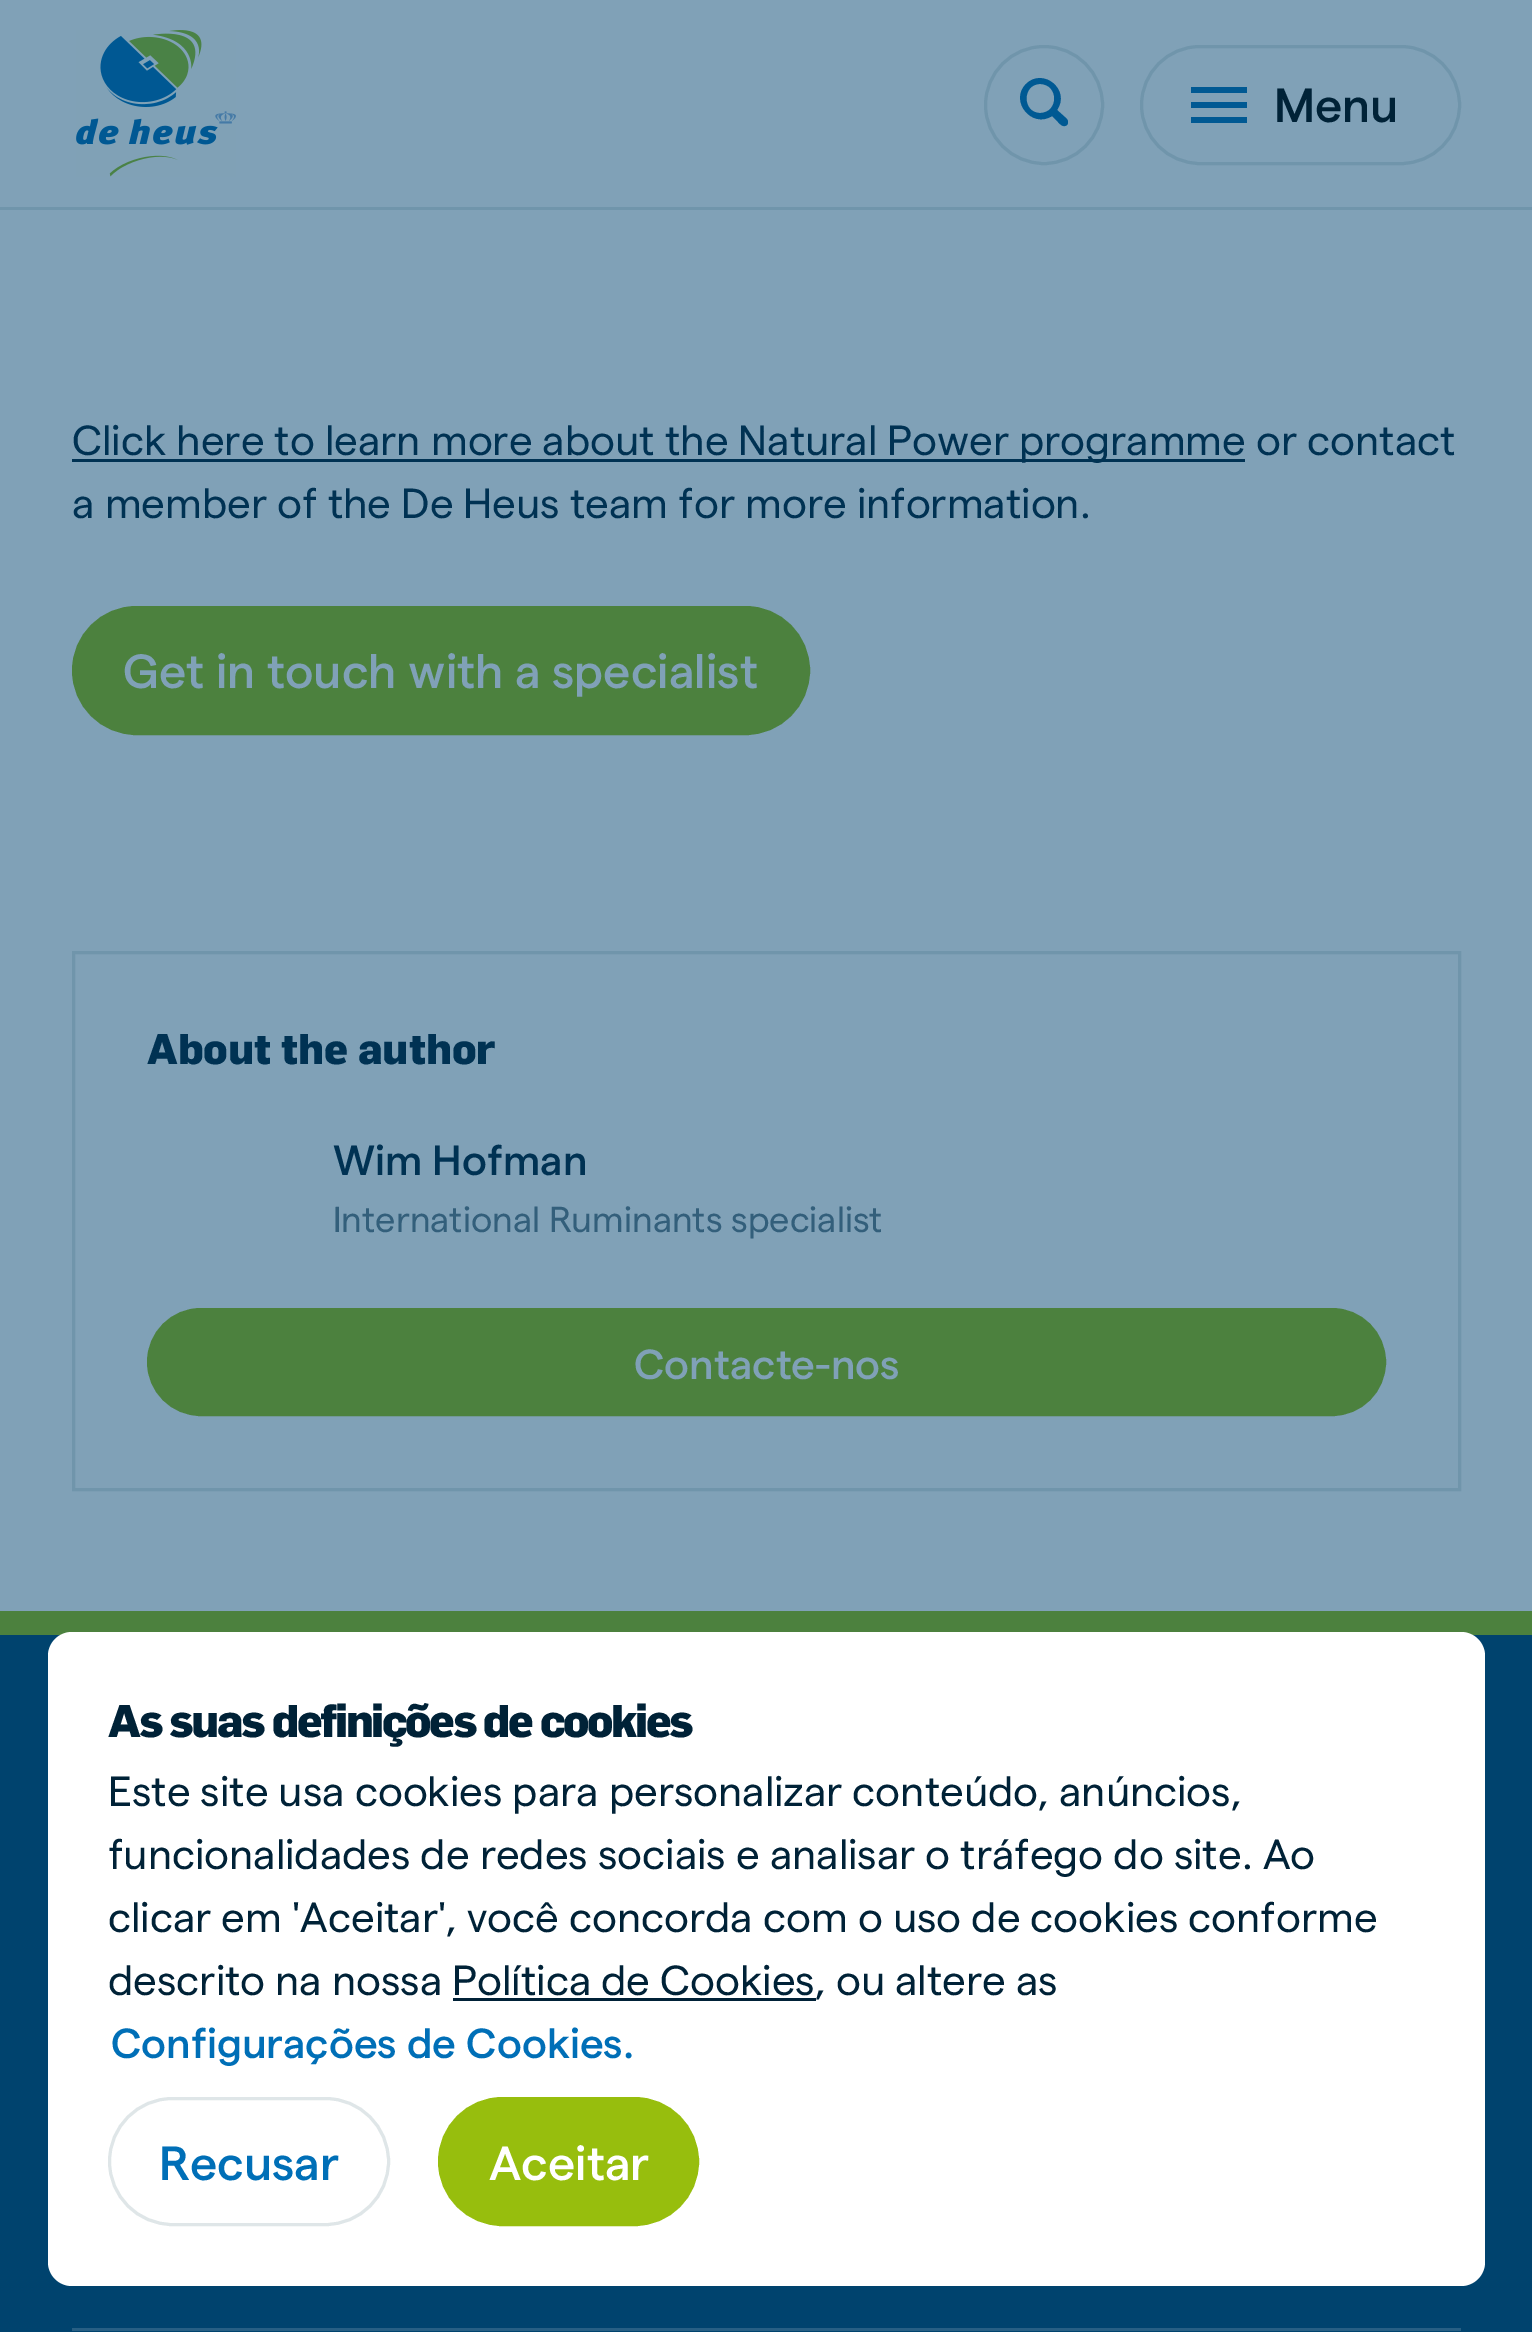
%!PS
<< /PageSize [1532 2332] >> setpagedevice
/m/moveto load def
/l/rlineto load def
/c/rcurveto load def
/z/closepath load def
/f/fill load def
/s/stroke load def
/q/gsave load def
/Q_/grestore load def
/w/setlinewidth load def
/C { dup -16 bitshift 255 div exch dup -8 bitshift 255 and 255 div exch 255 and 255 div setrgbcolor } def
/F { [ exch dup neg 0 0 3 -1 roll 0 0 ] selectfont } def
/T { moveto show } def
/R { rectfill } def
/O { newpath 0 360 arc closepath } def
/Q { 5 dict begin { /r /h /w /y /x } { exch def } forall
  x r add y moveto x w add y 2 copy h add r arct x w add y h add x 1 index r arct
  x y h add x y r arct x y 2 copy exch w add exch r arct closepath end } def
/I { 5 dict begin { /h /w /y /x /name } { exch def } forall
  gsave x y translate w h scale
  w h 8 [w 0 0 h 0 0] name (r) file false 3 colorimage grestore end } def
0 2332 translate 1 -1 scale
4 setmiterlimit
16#80A1B7 C
0 0 1532 2332 R
16#7095AB C
0 207 1532 3 R
(1.rgb) 76 30 160 147 I
3 w
1044 105 58.5 O s
16#005993 C
1067 119 m -10 -9 l 14 -20 -14 -43 -31 -26 c -17 17 6 45 26 32 c 6 6 l 2 2 5 6 9 3 c 1 -1 1 -2 1 -4 c z 1040 84 m 19 0 19 29 0 29 c -18 0 -18 -29 0 -29 c z eofill
16#7095AB C
1141.5 46.5 318 117 58.5 Q s
16#005993 C
1247 87 m 0 6 l -56 0 l 0 -6 l z 1247 102 m 0 6 l -56 0 l 0 -6 l z 1247 123 m 0 -6 l -56 0 l 0 6 l z eofill
/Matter-Medium 48 F
16#002237 C
(Menu) 1274 122 T
16#003253 C
72 459 1173 3 R
/Matter-Regular 42 F
(Click here to learn more about the Natural Power programme or contact) 72 455 T
(a member of the De Heus team for more information.) 72 518 T
16#4C813E C
73.5 607.5 735 126 63 Q q f Q_
s
/Matter-Medium 48 F
16#80A1B7 C
(Get in touch with a specialist) 123 688 T
16#7095AB C
73.5 952.5 1386 537 rectstroke
/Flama-ExtraBold 42 F
16#003253 C
(About the author) 147 1064 T
/Matter-Medium 42 F
(Wim Hofman) 333 1175 T
/Matter-Regular 36 F
16#335F7B C
(International Ruminants specialist) 333 1232 T
16#4C813E C
148.5 1309.5 1236 105 52.5 Q q f Q_
s
/Matter-Medium 42 F
16#80A1B7 C
(Contacte-nos) 634 1379 T
16#00436E C
0 1635 1532 697 R
16#4C813E C
0 1611 1532 24 R
16#275F84 C
72 2328 1389 3 R
16#FFFFFF C
48 1632 1437 654 24 Q f
/Flama-ExtraBold 45 F
16#002237 C
108 1737 m -2.35 0 (As suas definições de cookies) ashow
/Matter-Regular 42 F
(Este site usa cookies para personalizar conteúdo, anúncios,) 108 1806 T
(funcionalidades de redes sociais e analisar o tráfego do site. Ao) 108 1869 T
(clicar em 'Aceitar', você concorda com o uso de cookies conforme) 108 1932 T
(descrito na nossa Política de Cookies, ou altere as) 108 1995 T
16#002137 C
453 1998 363 3 R
/Matter-Medium 42 F
16#006FB7 C
(Configurações de Cookies.) 111 2058 T
16#DFE6E8 C
109.5 2098.5 279 126 63 Q s
/Matter-Medium 48 F
16#006FB7 C
(Recusar) 159 2180 T
16#97BE0D C
439.5 2098.5 258 126 63 Q q f Q_
s
16#FFFFFF C
(Aceitar) 489 2180 T
showpage
